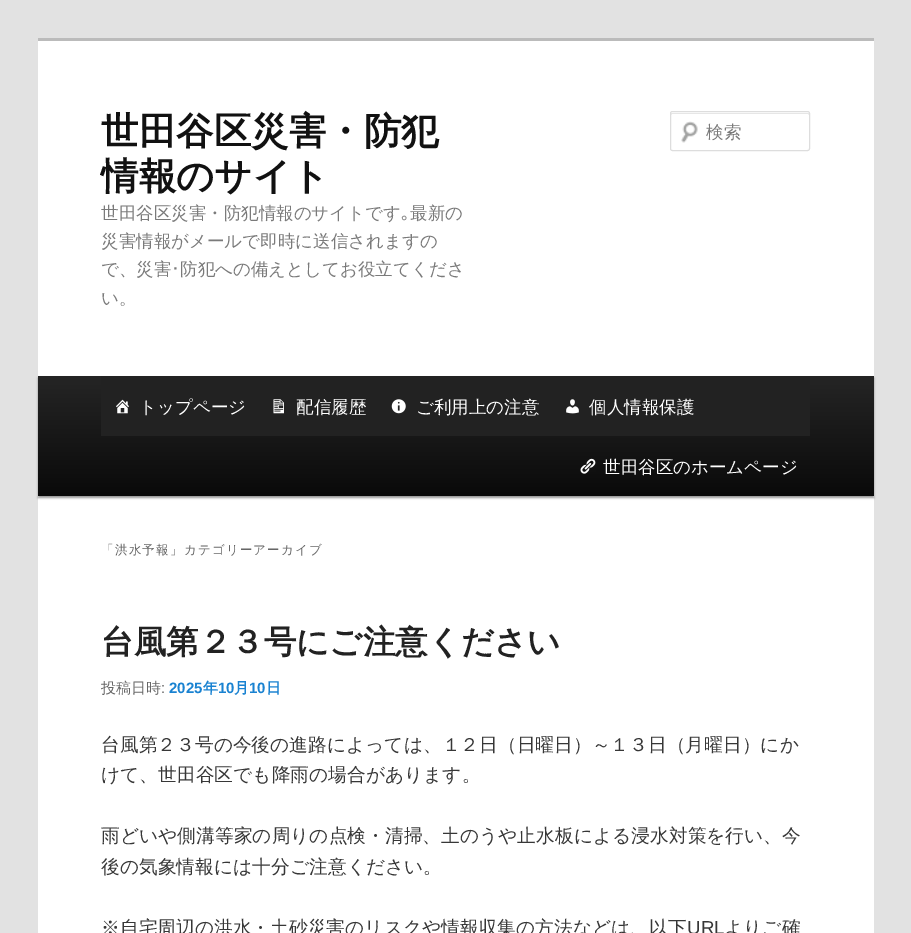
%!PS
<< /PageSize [911 933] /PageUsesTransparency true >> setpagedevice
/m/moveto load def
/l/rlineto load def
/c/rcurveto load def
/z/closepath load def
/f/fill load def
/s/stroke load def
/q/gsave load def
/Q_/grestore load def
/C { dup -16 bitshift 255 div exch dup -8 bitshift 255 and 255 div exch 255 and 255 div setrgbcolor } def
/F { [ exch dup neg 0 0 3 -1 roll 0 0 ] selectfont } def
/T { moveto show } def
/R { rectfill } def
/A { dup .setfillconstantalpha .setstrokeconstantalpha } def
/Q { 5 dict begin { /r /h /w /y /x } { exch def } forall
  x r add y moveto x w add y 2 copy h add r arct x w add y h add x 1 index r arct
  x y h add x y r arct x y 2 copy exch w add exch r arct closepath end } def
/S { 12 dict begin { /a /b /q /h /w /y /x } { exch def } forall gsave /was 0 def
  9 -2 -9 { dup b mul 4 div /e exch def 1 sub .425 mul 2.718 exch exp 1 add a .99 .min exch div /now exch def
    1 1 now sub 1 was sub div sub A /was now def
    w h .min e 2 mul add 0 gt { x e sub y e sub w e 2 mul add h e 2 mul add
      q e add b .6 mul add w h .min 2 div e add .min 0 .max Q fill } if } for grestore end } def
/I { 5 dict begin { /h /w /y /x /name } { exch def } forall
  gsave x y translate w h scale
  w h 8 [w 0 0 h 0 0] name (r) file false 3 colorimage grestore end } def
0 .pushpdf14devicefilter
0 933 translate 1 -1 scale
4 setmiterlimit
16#E2E2E2 C
0 0 911 933 R
16#FFFFFF C
38 41 836 892 R
16#BBBBBB C
38 38 836 3 R
/WenQuanYiZenHei-Bold 37.5 F
16#111111 C
(世田谷区災害・防犯) 101 144 T
(情報のサイト) 101 189 T
/WenQuanYiZenHei-Medium 17.5 F
16#7A7A7A C
(世田谷区災害・防犯情報のサイトです) 101 219 T
/IPAPGothic-Regular 17.5 F
(｡) 401 219 T
/WenQuanYiZenHei-Medium 17.5 F
(最新の) 410 219 T
(災害情報がメールで即時に送信されますの) 101 247 T
(で、災害) 101 275 T
/IPAPGothic-Regular 17.5 F
(･) 171 275 T
/WenQuanYiZenHei-Medium 17.5 F
(防犯への備えとしてお役立てくださ) 180 275 T
(い。) 101 304 T
(1.rgb) 681 121 17 22 I
16#E6E6E6 C
672 114 m 136 0 l 1 1 l 0 -1 0 -2 -1 -2 c -136 0 l -1 0 -1 1 -1 2 c z f
16#DDDDDD C
670.5 111.5 139 39 2 Q s
16#7A7A7A C
(検索) 706 138 T
16#000000 C
38 378 836 120 0 1 .4 S
q 38 376 m 836 0 l 0 120 l -836 0 l z clip newpath
<< /ShadingType 2 /ColorSpace /DeviceRGB /Coords [456 376 456 496] /Extend [true true] /Function << /FunctionType 2 /Domain [0 1] /C0 [.145 .145 .145] /C1 [.039 .039 .039] /N 1 >> >> shfill Q_
16#222222 C
101 376 709 60 R
(2.rgb) 116 399 13 15 I
16#FFFFFF C
(トップページ) 139 413 T
(3.rgb) 273 399 11 15 I
(配信履歴) 296 413 T
(4.rgb) 391 399 15 15 I
(ご利用上の注意) 416 413 T
(5.rgb) 566 399 13 15 I
(個人情報保護) 589 413 T
(6.rgb) 580 458 16 16 I
(世田谷区のホームページ) 603 473 T
/WenQuanYiZenHei-Medium 12.5 F
16#666666 C
101 554 m 1.25 0 (「洪水予報」カテゴリーアーカイブ) ashow
/WenQuanYiZenHei-Bold 32.5 F
16#222222 C
(台風第２３号にご注意ください) 101 653 T
/WenQuanYiZenHei-Medium 15 F
16#666666 C
(投稿日時) 101 693 T
/LiberationSans-Regular 15 F
(:) 161 693 T
/LiberationSans-Bold 15 F
16#1982D1 C
(2025) 169 693 T
/WenQuanYiZenHei-Bold 15 F
(年) 203 693 T
/LiberationSans-Bold 15 F
(10) 218 693 T
/WenQuanYiZenHei-Bold 15 F
(月) 234 693 T
/LiberationSans-Bold 15 F
(10) 249 693 T
/WenQuanYiZenHei-Bold 15 F
(日) 266 693 T
/WenQuanYiZenHei-Medium 18.75 F
16#373737 C
(台風第２３号の今後の進路によっては、１２日（日曜日）～１３日（月曜日）にか) 101 751 T
(けて、世田谷区でも降雨の場合があります。) 101 781 T
(雨どいや側溝等家の周りの点検・清掃、土のうや止水板による浸水対策を行い、今) 101 842 T
(後の気象情報には十分ご注意ください。) 101 873 T
(※自宅周辺の洪水・土砂災害のリスクや情報収集の方法などは、以下) 101 934 T
/LiberationSans-Regular 18.75 F
(URL) 687 934 T
/WenQuanYiZenHei-Medium 18.75 F
(よりご確) 724 934 T
.poppdf14devicefilter showpage
